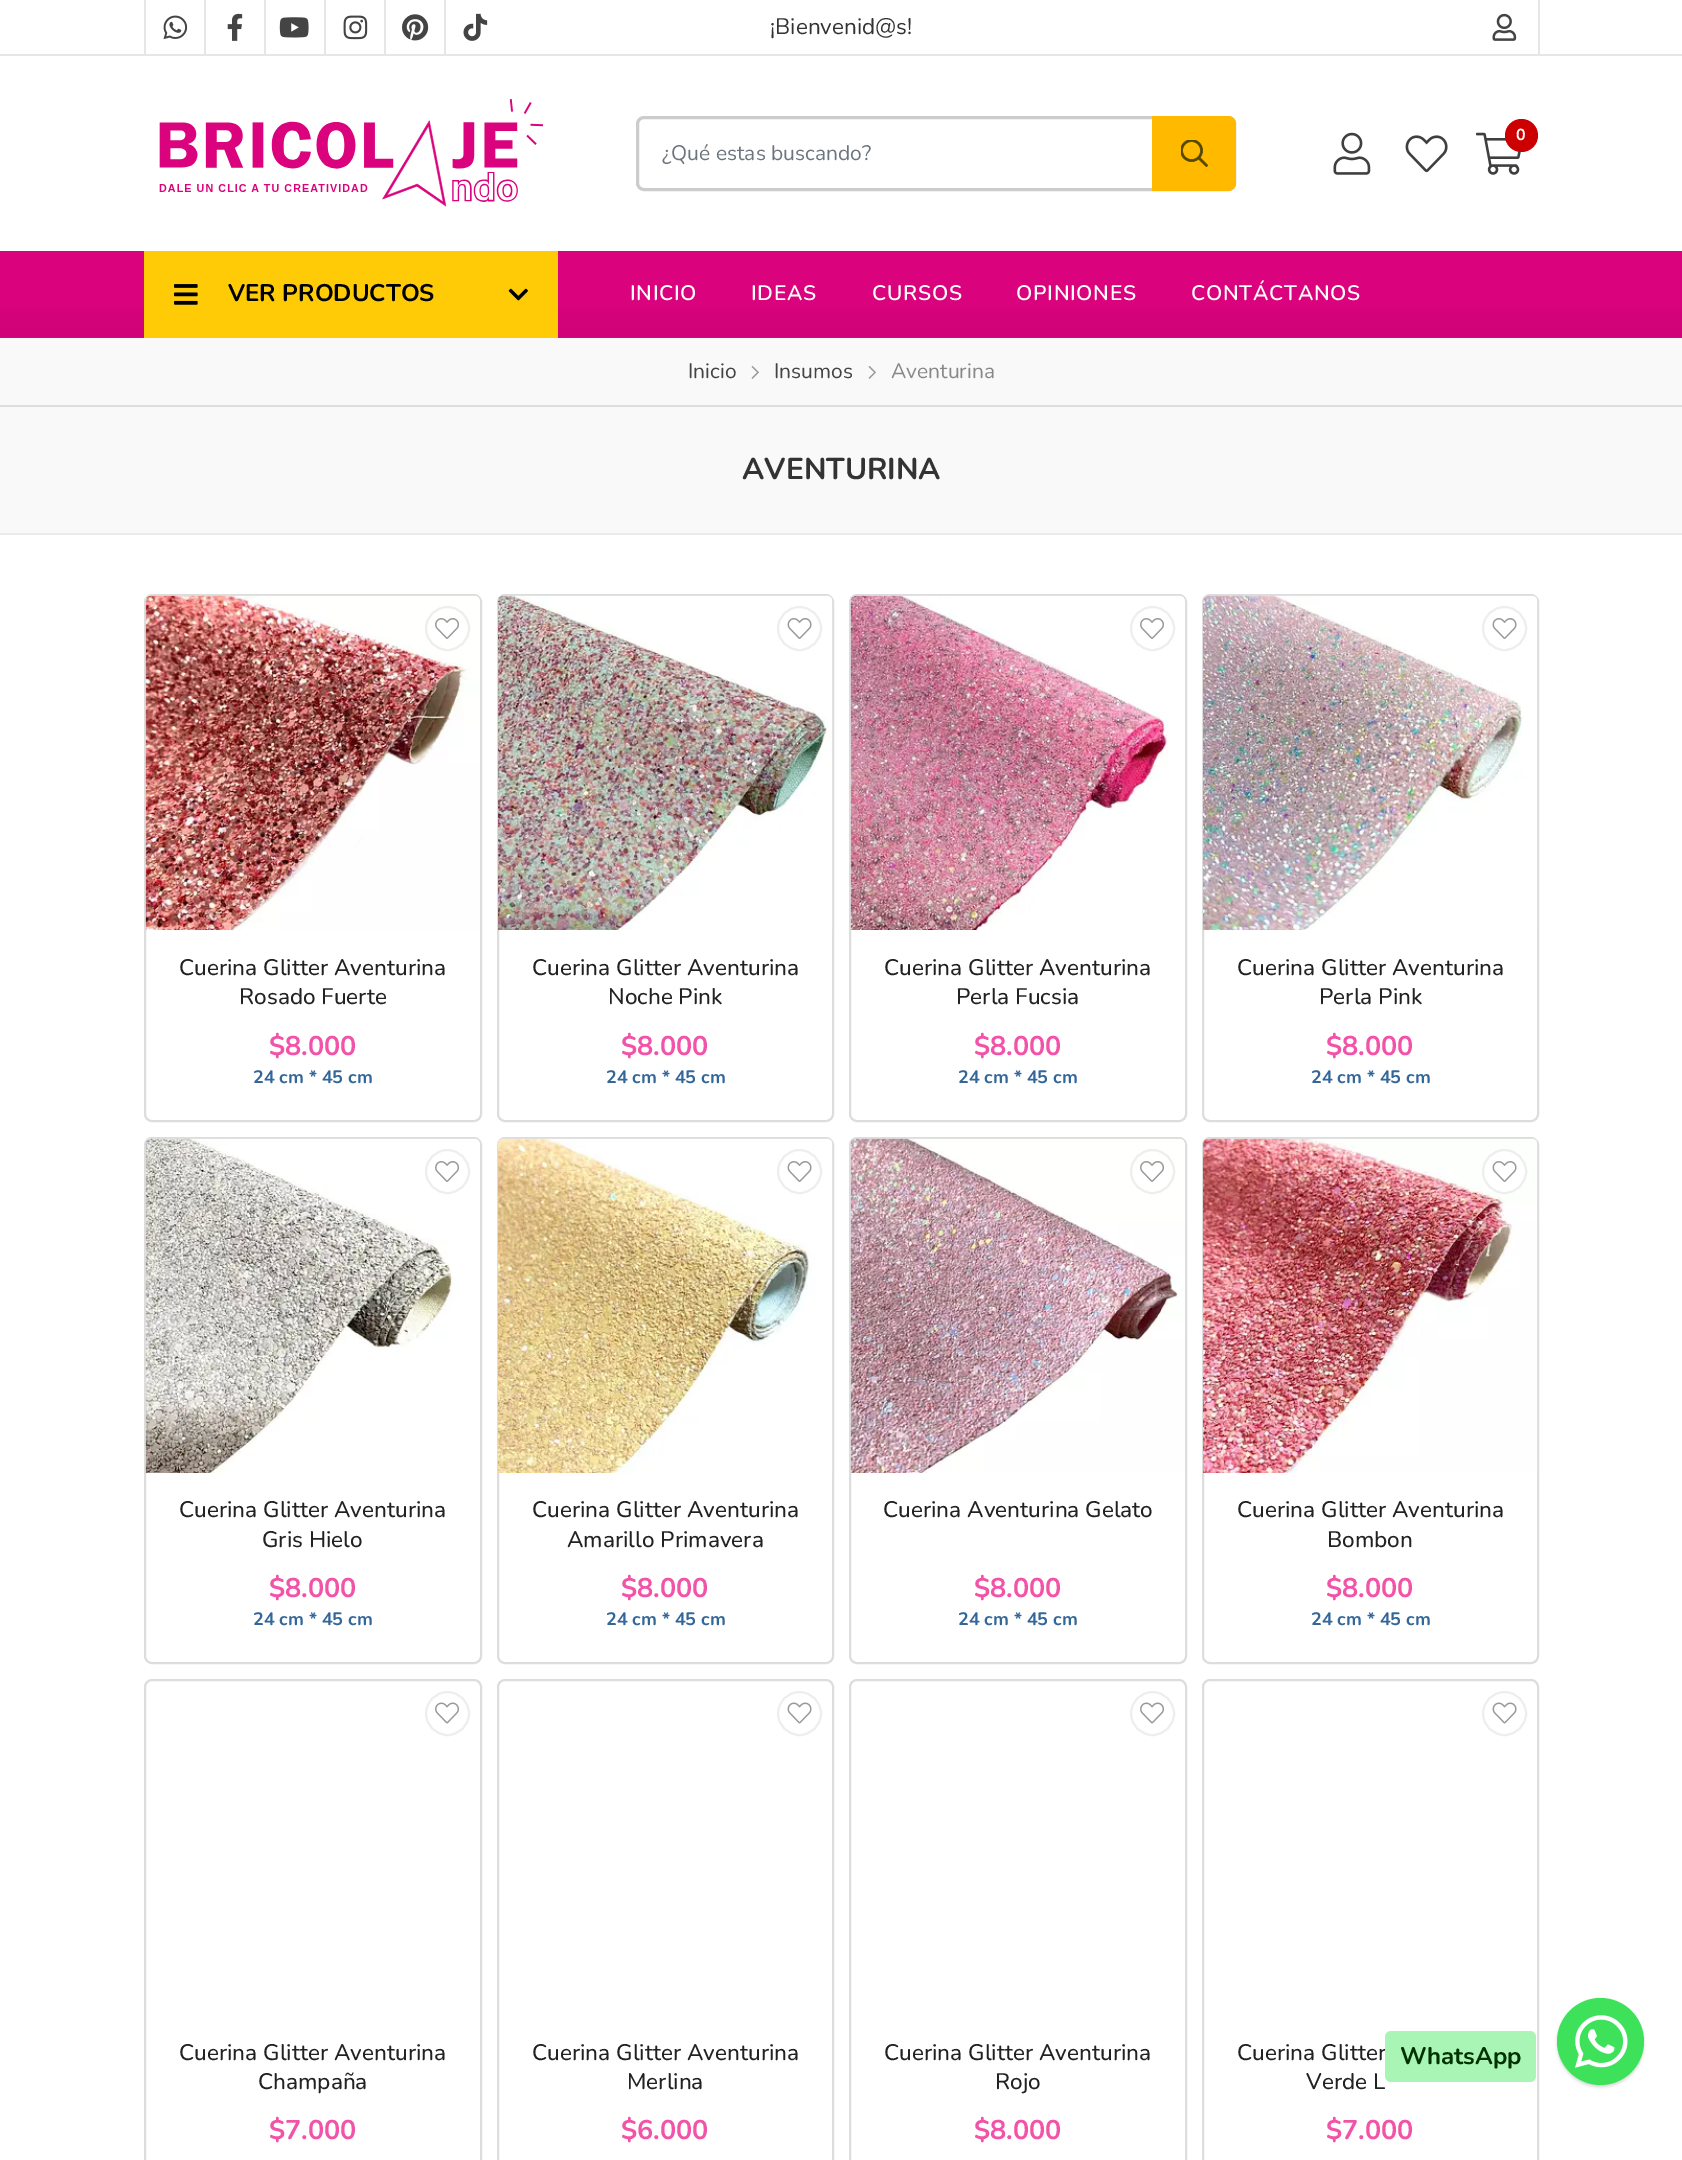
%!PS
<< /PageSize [1682 2160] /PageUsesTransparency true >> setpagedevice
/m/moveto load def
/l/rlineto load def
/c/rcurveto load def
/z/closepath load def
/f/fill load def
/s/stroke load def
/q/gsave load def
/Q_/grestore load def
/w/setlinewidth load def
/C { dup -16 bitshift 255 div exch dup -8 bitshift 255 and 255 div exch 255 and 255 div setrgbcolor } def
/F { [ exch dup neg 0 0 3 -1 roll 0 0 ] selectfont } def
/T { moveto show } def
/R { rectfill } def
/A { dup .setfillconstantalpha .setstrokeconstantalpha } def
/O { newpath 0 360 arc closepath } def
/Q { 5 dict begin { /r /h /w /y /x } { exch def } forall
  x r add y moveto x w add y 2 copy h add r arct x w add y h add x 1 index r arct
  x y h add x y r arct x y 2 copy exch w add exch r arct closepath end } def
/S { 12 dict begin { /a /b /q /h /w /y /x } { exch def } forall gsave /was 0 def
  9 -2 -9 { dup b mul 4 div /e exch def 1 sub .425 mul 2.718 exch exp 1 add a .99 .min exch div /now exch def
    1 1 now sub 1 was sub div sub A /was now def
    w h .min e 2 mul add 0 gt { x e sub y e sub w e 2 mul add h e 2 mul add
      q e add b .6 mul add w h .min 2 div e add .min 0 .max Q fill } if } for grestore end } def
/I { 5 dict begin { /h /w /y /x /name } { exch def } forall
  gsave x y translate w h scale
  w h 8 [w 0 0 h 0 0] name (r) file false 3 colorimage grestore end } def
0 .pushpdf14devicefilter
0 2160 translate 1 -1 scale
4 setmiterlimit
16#FFFFFF C
0 0 1682 2160 R
16#E6E6E6 C
0 54 1682 2 R
144 0 2 54 R
(1.rgb) 163 15 25 25 I
204 0 2 54 R
(2.rgb) 227 13 16 28 I
264 0 2 54 R
(3.rgb) 279 17 30 21 I
324 0 2 54 R
(4.rgb) 343 15 25 25 I
384 0 2 54 R
(5.rgb) 402 14 27 27 I
444 0 2 54 R
(6.rgb) 463 13 25 28 I
/Nunito-Regular 22.5 F
16#333333 C
(¡Bienvenid@s!) 770 34 T
16#E6E6E6 C
1538 0 2 54 R
(7.rgb) 1492 13 25 28 I
(8.rgb) 159 99 384 108 I
(9.rgb) 1333 132 38 43 I
(10.rgb) 1405 135 43 38 I
(11.rgb) 1476 132 45 43 I
16#CC0000 C
1521.5 135.5 16.5 O f
/Nunito-Bold 16 F
16#FFFFFF C
(0) 1516 140 T
16#CCCCCC C
3 w
637.5 117.5 597 72 6.5 Q s
/Nunito-Regular 21 F
16#6C757D C
(¿Qué estas buscando?) 662 160 T
16#FFBA00 C
1152 116 m 76 0 l 4.5 0 8 3.5 8 8 c 0 59 l 0 4.5 -3.5 8 -8 8 c -76 0 l z f
(12.rgb) 1181 140 27 27 I
16#DA027D C
0 251 1682 87 R
(13.rgb) 0 308 1682 29 I
16#FFCB06 C
144 251 414 87 R
(14.rgb) 174 284 24 21 I
/Nunito-Bold 24 F
16#000000 C
(VER PRODUCTOS) 228 301 T
(15.rgb) 508 288 20 13 I
/Nunito-SemiBold 21 F
16#FFFFFF C
630 300 m .75 0 (INICIO) ashow
751 300 m .75 0 (IDEAS) ashow
872 300 m .75 0 (CURSOS) ashow
1016 300 m .75 0 (OPINIONES) ashow
1191 300 m .75 0 (CONTÁCTANOS) ashow
16#F9F9F9 C
0 338 1682 67 R
16#DDDDDD C
0 405 1682 2 R
/Nunito-Regular 21 F
16#444444 C
(Inicio) 688 378 T
(16.rgb) 751 366 8 13 I
(Insumos) 774 378 T
(16.rgb) 868 366 8 13 I
16#888888 C
(Aventurina) 891 378 T
16#F9F9F9 C
0 407 1682 126 R
16#EBEBEB C
0 533 1682 2 R
/Nunito-Bold 30 F
16#333333 C
(AVENTURINA) 742 479 T
16#DDDDDD C
2 w
145 595 336 526 7 Q s
(17.rgb) 145 595 335 335 I
16#EEEEEE C
447.5 628.5 21.5 O s
(18.rgb) 435 618 24 21 I
/Nunito-Medium 22.5 F
16#222222 C
(Cuerina Glitter Aventurina) 179 975 T
(Rosado Fuerte) 239 1004 T
/Nunito-Bold 27 F
16#F252A7 C
($8.000) 269 1055 T
/Nunito-Bold 18 F
16#336699 C
(24 cm * 45 cm) 253 1083 T
16#DDDDDD C
498 595 335 526 7 Q s
(19.rgb) 498 595 335 335 I
16#EEEEEE C
799.5 628.5 21.5 O s
(20.rgb) 787 618 25 21 I
/Nunito-Medium 22.5 F
16#222222 C
(Cuerina Glitter Aventurina) 532 975 T
(Noche Pink) 608 1004 T
/Nunito-Bold 27 F
16#F252A7 C
($8.000) 621 1055 T
/Nunito-Bold 18 F
16#336699 C
(24 cm * 45 cm) 606 1083 T
16#DDDDDD C
850 595 336 526 7 Q s
(21.rgb) 850 595 335 335 I
16#EEEEEE C
1152.5 628.5 21.5 O s
(18.rgb) 1140 618 24 21 I
/Nunito-Medium 22.5 F
16#222222 C
(Cuerina Glitter Aventurina) 884 975 T
(Perla Fucsia) 956 1004 T
/Nunito-Bold 27 F
16#F252A7 C
($8.000) 974 1055 T
/Nunito-Bold 18 F
16#336699 C
(24 cm * 45 cm) 958 1083 T
16#DDDDDD C
1203 595 335 526 7 Q s
(22.rgb) 1203 595 335 335 I
16#EEEEEE C
1504.5 628.5 21.5 O s
(20.rgb) 1492 618 25 21 I
/Nunito-Medium 22.5 F
16#222222 C
(Cuerina Glitter Aventurina) 1237 975 T
(Perla Pink) 1319 1004 T
/Nunito-Bold 27 F
16#F252A7 C
($8.000) 1326 1055 T
/Nunito-Bold 18 F
16#336699 C
(24 cm * 45 cm) 1311 1083 T
16#DDDDDD C
145 1138 336 525 7 Q s
(23.rgb) 145 1138 335 335 I
16#EEEEEE C
447.5 1171.5 21.5 O s
(18.rgb) 435 1161 24 21 I
/Nunito-Medium 22.5 F
16#222222 C
(Cuerina Glitter Aventurina) 179 1517 T
(Gris Hielo) 262 1547 T
/Nunito-Bold 27 F
16#F252A7 C
($8.000) 269 1597 T
/Nunito-Bold 18 F
16#336699 C
(24 cm * 45 cm) 253 1625 T
16#DDDDDD C
498 1138 335 525 7 Q s
(24.rgb) 498 1138 335 335 I
16#EEEEEE C
799.5 1171.5 21.5 O s
(20.rgb) 787 1161 25 21 I
/Nunito-Medium 22.5 F
16#222222 C
(Cuerina Glitter Aventurina) 532 1517 T
(Amarillo Primavera) 567 1547 T
/Nunito-Bold 27 F
16#F252A7 C
($8.000) 621 1597 T
/Nunito-Bold 18 F
16#336699 C
(24 cm * 45 cm) 606 1625 T
16#DDDDDD C
850 1138 336 525 7 Q s
(25.rgb) 850 1138 335 335 I
16#EEEEEE C
1152.5 1171.5 21.5 O s
(18.rgb) 1140 1161 24 21 I
/Nunito-Medium 22.5 F
16#222222 C
(Cuerina Aventurina Gelato) 883 1517 T
/Nunito-Bold 27 F
16#F252A7 C
($8.000) 974 1597 T
/Nunito-Bold 18 F
16#336699 C
(24 cm * 45 cm) 958 1625 T
16#DDDDDD C
1203 1138 335 525 7 Q s
(26.rgb) 1203 1138 335 335 I
16#FFFFFF C
1504.5 1171.5 21.5 O q f Q_
16#EEEEEE C
s
(20.rgb) 1492 1161 25 21 I
/Nunito-Medium 22.5 F
16#222222 C
(Cuerina Glitter Aventurina) 1237 1517 T
(Bombon) 1327 1547 T
/Nunito-Bold 27 F
16#F252A7 C
($8.000) 1326 1597 T
/Nunito-Bold 18 F
16#336699 C
(24 cm * 45 cm) 1311 1625 T
16#DDDDDD C
145 1680 336 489 7 Q s
16#EEEEEE C
447.5 1713.5 21.5 O s
(27.rgb) 435 1702 24 22 I
/Nunito-Medium 22.5 F
16#222222 C
(Cuerina Glitter Aventurina) 179 2060 T
(Champaña) 258 2089 T
/Nunito-Bold 27 F
16#F252A7 C
($7.000) 269 2139 T
16#DDDDDD C
498 1680 335 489 7 Q s
16#EEEEEE C
799.5 1713.5 21.5 O s
(28.rgb) 787 1702 25 22 I
/Nunito-Medium 22.5 F
16#222222 C
(Cuerina Glitter Aventurina) 532 2060 T
(Merlina) 627 2089 T
/Nunito-Bold 27 F
16#F252A7 C
($6.000) 621 2139 T
16#DDDDDD C
850 1680 336 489 7 Q s
16#EEEEEE C
1152.5 1713.5 21.5 O s
(27.rgb) 1140 1702 24 22 I
/Nunito-Medium 22.5 F
16#222222 C
(Cuerina Glitter Aventurina) 884 2060 T
(Rojo) 995 2089 T
/Nunito-Bold 27 F
16#F252A7 C
($8.000) 974 2139 T
16#DDDDDD C
1203 1680 335 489 7 Q s
16#EEEEEE C
1504.5 1713.5 21.5 O s
(28.rgb) 1492 1702 25 22 I
/Nunito-Medium 22.5 F
16#222222 C
(Cuerina Glitter) 1237 2060 T
(Verde L) 1306 2089 T
/Nunito-Bold 27 F
16#F252A7 C
($7.000) 1326 2139 T
16#A8F5B6 C
1385 2031 151 51 6 Q f
/Nunito-Bold 24 F
16#003300 C
(WhatsApp) 1400 2064 T
16#000000 C
1557 2000 87 87 43.5 1.5 .15 S
16#3DE15A C
1600.5 2041.5 43.5 O f
(29.rgb) 1575 2015 53 53 I
.poppdf14devicefilter showpage
